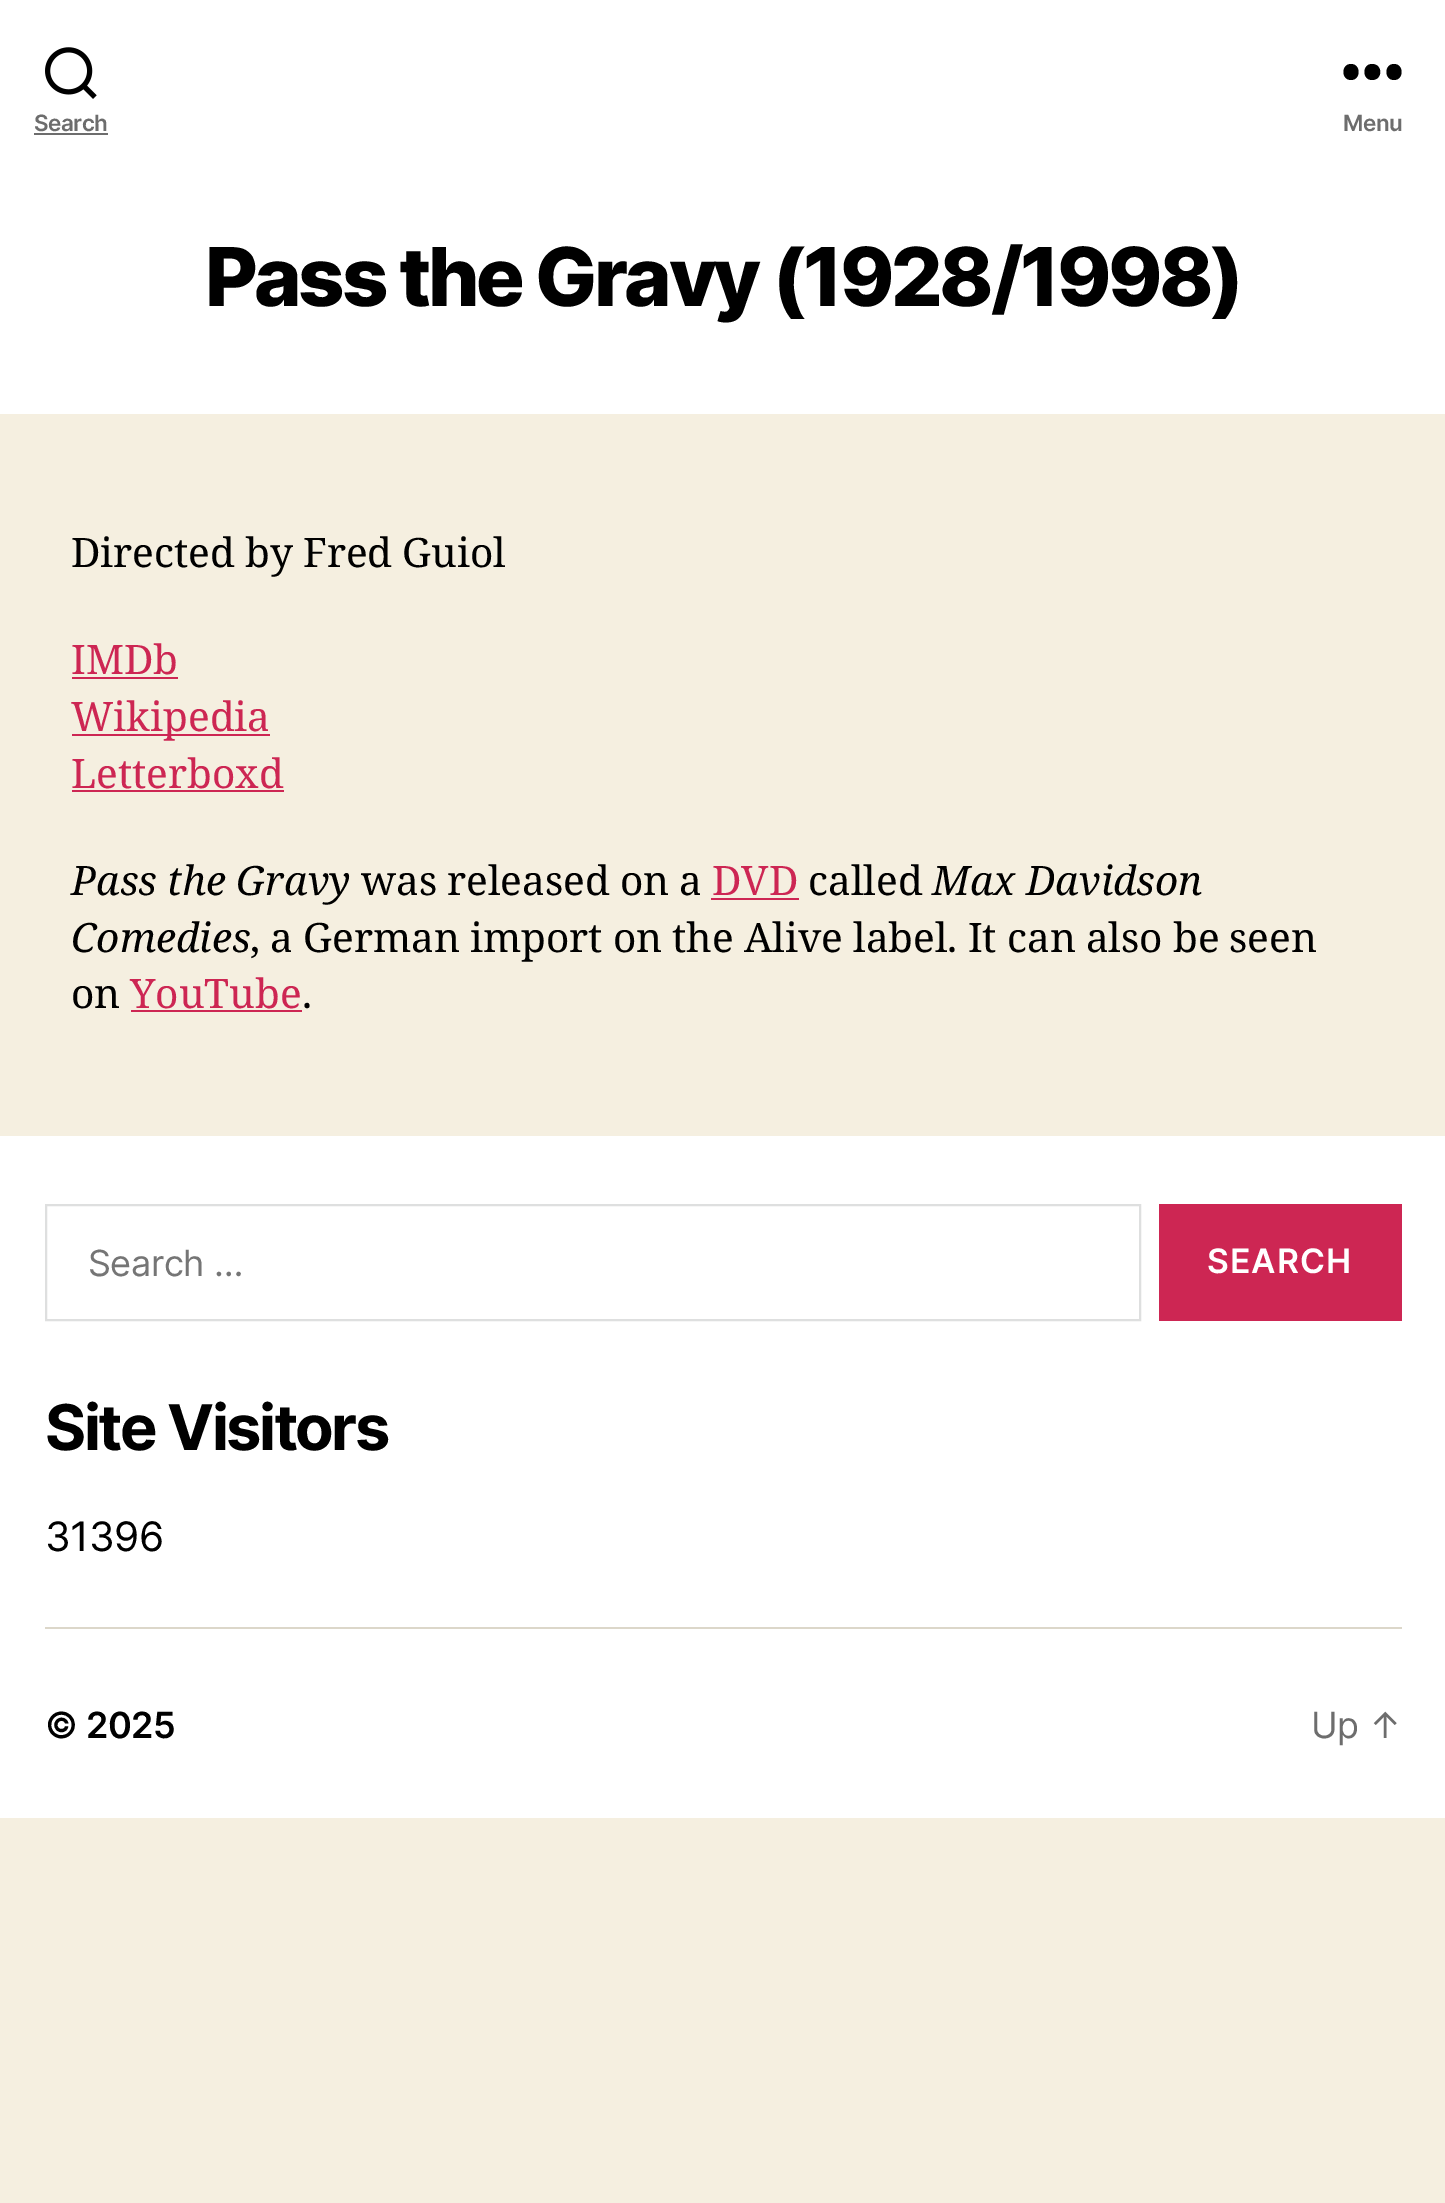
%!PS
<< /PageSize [1445 2203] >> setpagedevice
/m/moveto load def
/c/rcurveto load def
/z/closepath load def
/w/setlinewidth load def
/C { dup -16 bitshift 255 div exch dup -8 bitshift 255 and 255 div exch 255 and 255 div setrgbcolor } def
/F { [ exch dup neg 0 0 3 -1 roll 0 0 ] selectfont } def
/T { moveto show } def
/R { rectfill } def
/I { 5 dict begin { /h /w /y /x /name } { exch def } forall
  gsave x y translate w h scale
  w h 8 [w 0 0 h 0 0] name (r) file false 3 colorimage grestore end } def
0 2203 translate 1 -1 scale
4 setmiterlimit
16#F5EFE0 C
0 0 1445 2203 R
16#FFFFFF C
0 0 1445 414 R
(1.rgb) 45 47 52 52 I
/Inter-SemiBold 22.5 F
16#6D6D6D C
34 131 m -.5 0 (Search) ashow
34 133 74 2 R
16#000000 C
1351 80 m -10 0 -10 -16 0 -16 c 10 0 10 16 0 16 c z 1372 80 m -10 0 -10 -16 0 -16 c 11 0 11 16 0 16 c z 1394 80 m -10 0 -10 -16 0 -16 c 10 0 10 16 0 16 c z eofill
16#6D6D6D C
1343 131 m -.5 0 (Menu) ashow
/Inter-ExtraBold 81 F
16#000000 C
205 306 m -3.4 0 (Pass the Gravy \(1928/1998\)) ashow
/NotoSerif-Regular 40.5 F
71 567 m -.5 0 32 (Directed by Fred Guiol) widthshow
16#CD2653 C
(IMDb) 71 674 T
72 677 106 2 R
72 734 198 2 R
(Wikipedia) 71 731 T
(Letterboxd) 71 788 T
72 790 212 2 R
/NotoSerif-Italic 40.5 F
16#000000 C
71 895 m -.5 0 32 (Pass the Gravy) widthshow
/NotoSerif-Regular 40.5 F
361 895 m -.5 0 32 (was released on a) widthshow
16#CD2653 C
(DVD) 712 895 T
711 898 88 2 R
16#000000 C
(called) 808 895 T
/NotoSerif-Italic 40.5 F
(Max Davidson) 932 895 T
(Comedies) 71 952 T
/NotoSerif-Regular 40.5 F
250 952 m -.5 0 32 (, a German import on the Alive label. It can also be seen) widthshow
(on) 71 1008 T
16#CD2653 C
(YouTube) 130 1008 T
131 1010 171 2 R
16#000000 C
(.) 302 1008 T
16#FFFFFF C
0 1136 1445 682 R
16#DCD7CA C
45 1627 1357 2 R
16#DEDFDF C
2 w
46 1205 1094 115 rectstroke
/Inter-Regular 36 F
16#757575 C
88 1276 m -.5 0 (Search …) ashow
16#CD2653 C
1159 1204 243 117 R
/Inter-SemiBold 33.75 F
16#FFFFFF C
1207 1273 m 1 0 (SEARCH) ashow
/Inter-Bold 63 F
16#000000 C
45 1450 m -2.6 0 (Site Visitors) ashow
/Inter-Regular 40.5 F
45 1551 m -.5 0 (31396) ashow
/Inter-SemiBold 36 F
45 1738 m -.5 0 (© 2025) ashow
/Inter-Regular 36 F
16#6D6D6D C
1311 1738 m -.5 0 (Up ↑) ashow
showpage
